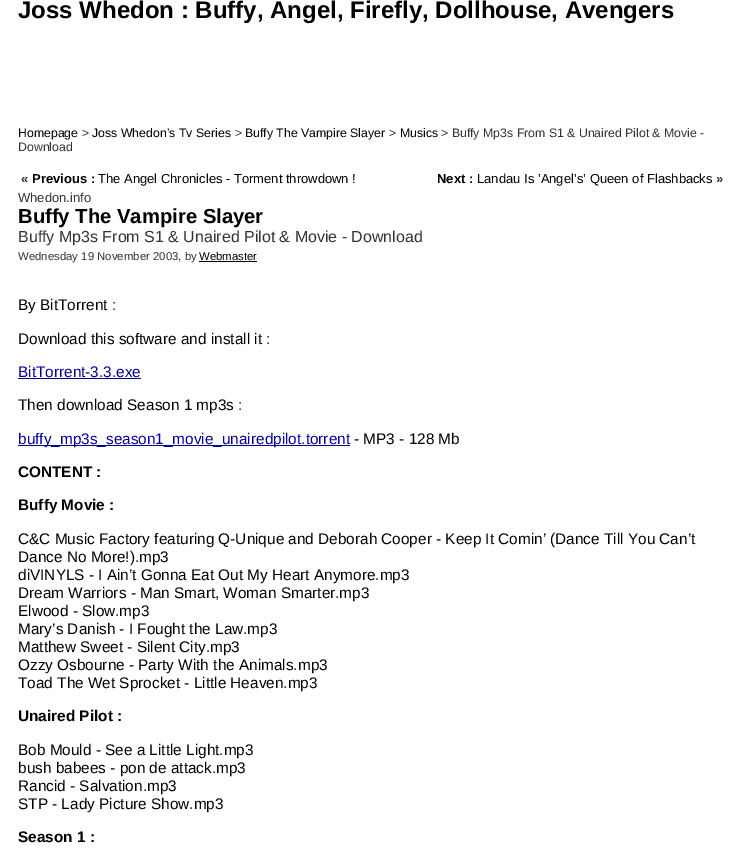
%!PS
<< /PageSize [748 862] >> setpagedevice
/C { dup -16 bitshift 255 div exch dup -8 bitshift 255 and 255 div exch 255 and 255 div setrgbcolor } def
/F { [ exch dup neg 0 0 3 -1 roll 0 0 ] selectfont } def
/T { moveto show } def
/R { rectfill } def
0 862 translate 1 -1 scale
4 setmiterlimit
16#FFFFFF C
0 0 748 862 R
/LiberationSans-Bold 24 F
16#000000 C
(Joss Whedon : Buffy, Angel, Firefly, Dollhouse, Avengers) 18 18 T
/LiberationSans-Regular 12.3 F
(Homepage) 18 137 T
16#333333 C
(>) 82 137 T
16#000000 C
(Joss Whedon’s Tv Series) 92 137 T
16#333333 C
(>) 235 137 T
16#000000 C
(Buffy The Vampire Slayer) 245 137 T
16#333333 C
(>) 389 137 T
16#000000 C
(Musics) 400 137 T
16#333333 C
(> Buffy Mp3s From S1 & Unaired Pilot & Movie -) 441 137 T
(Download) 18 151 T
/LiberationSans-Bold 13 F
(«) 21 183 T
16#000000 C
(Previous :) 32 183 T
/LiberationSans-Regular 13 F
(The Angel Chronicles - Torment throwdown !) 98 183 T
/LiberationSans-Bold 13 F
(Next :) 437 183 T
/LiberationSans-Regular 13 F
(Landau Is ’Angel’s’ Queen of Flashbacks) 477 183 T
/LiberationSans-Bold 13 F
16#333333 C
(») 716 183 T
/LiberationSans-Regular 13 F
(Whedon.info) 18 202 T
/LiberationSans-Bold 20.25 F
16#000000 C
(Buffy The Vampire Slayer) 18 223 T
/LiberationSans-Regular 16 F
16#333333 C
(Buffy Mp3s From S1 & Unaired Pilot & Movie - Download) 18 242 T
/LiberationSans-Regular 11.4 F
(Wednesday 19 November 2003, by) 18 260 T
16#000000 C
199 261 58 1 R
(Webmaster) 199 260 T
/LiberationSans-Regular 15.35 F
(By BitTorrent :) 18 310 T
(Download this software and install it :) 18 344 T
16#000099 C
(BitTorrent-3.3.exe) 18 377 T
18 378 123 1 R
16#000000 C
(Then download Season 1 mp3s :) 18 410 T
16#000099 C
18 445 332 1 R
(buffy_mp3s_season1_movie_unairedpilot.torrent) 18 444 T
16#000000 C
(- MP3 - 128 Mb) 354 444 T
/LiberationSans-Bold 15.35 F
(CONTENT :) 18 477 T
(Buffy Movie :) 18 510 T
/LiberationSans-Regular 15.35 F
(C&C Music Factory featuring Q-Unique and Deborah Cooper - Keep It Comin’ \(Dance Till You Can’t) 18 544 T
(Dance No More!\).mp3) 18 562 T
(diVINYLS - I Ain’t Gonna Eat Out My Heart Anymore.mp3) 18 580 T
(Dream Warriors - Man Smart, Woman Smarter.mp3) 18 598 T
(Elwood - Slow.mp3) 18 616 T
(Mary’s Danish - I Fought the Law.mp3) 18 634 T
(Matthew Sweet - Silent City.mp3) 18 652 T
(Ozzy Osbourne - Party With the Animals.mp3) 18 670 T
(Toad The Wet Sprocket - Little Heaven.mp3) 18 688 T
/LiberationSans-Bold 15.35 F
(Unaired Pilot :) 18 721 T
/LiberationSans-Regular 15.35 F
(Bob Mould - See a Little Light.mp3) 18 755 T
(bush babees - pon de attack.mp3) 18 773 T
(Rancid - Salvation.mp3) 18 791 T
(STP - Lady Picture Show.mp3) 18 809 T
/LiberationSans-Bold 15.35 F
(Season 1 :) 18 842 T
showpage
